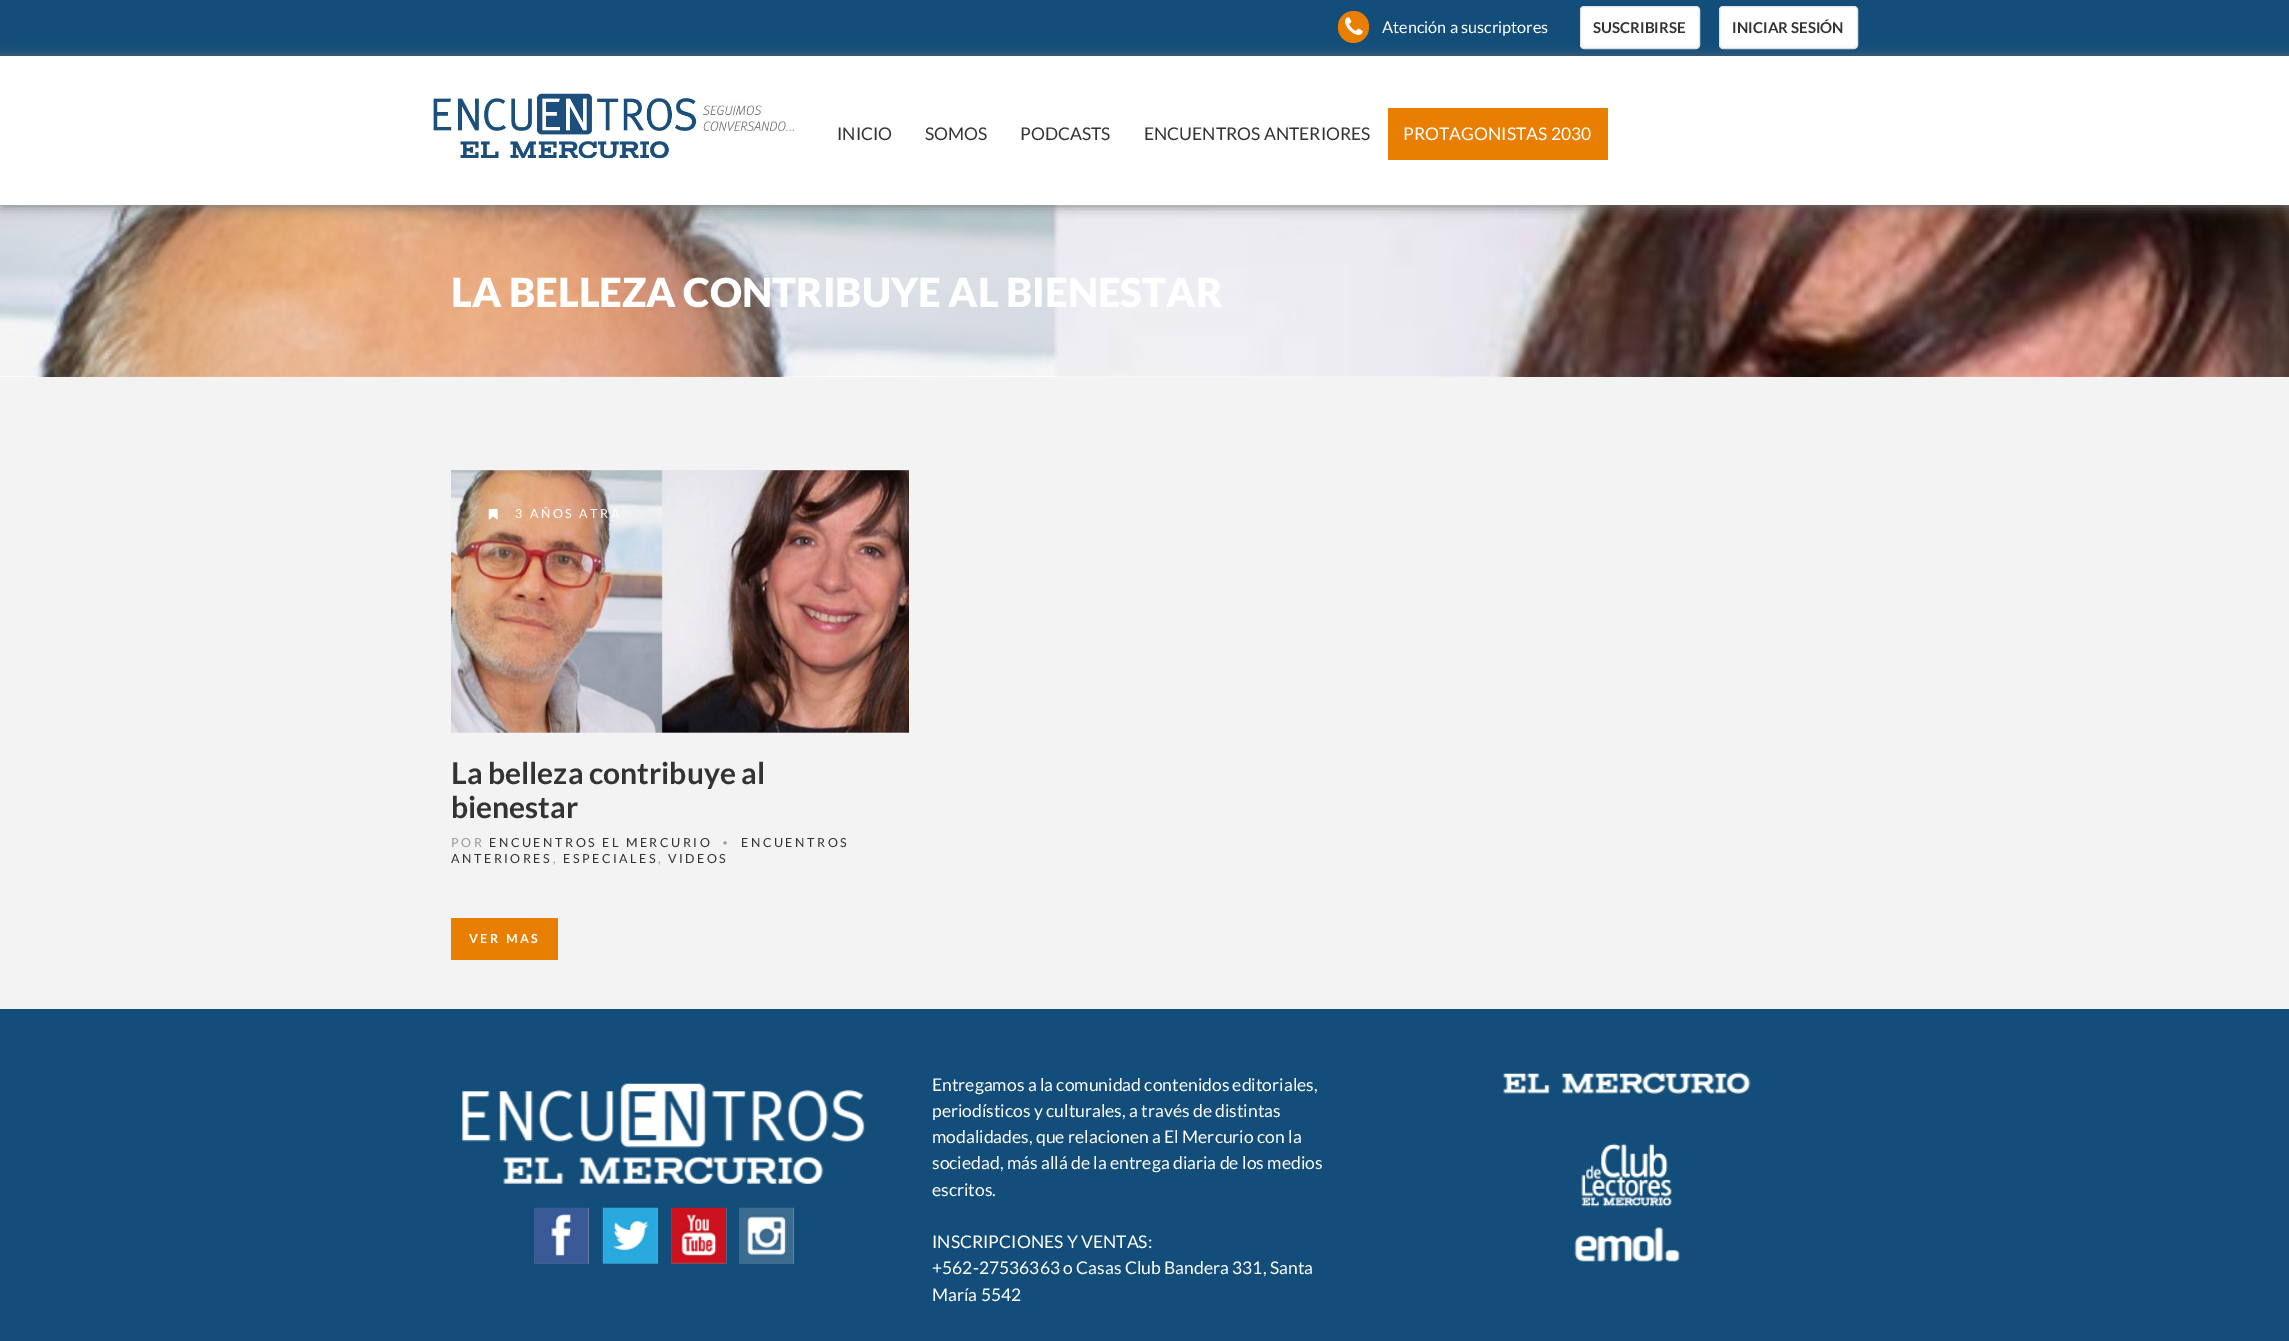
%!PS
<< /PageSize [2289 1341] /PageUsesTransparency true >> setpagedevice
/m/moveto load def
/f/fill load def
/s/stroke load def
/q/gsave load def
/Q_/grestore load def
/C { dup -16 bitshift 255 div exch dup -8 bitshift 255 and 255 div exch 255 and 255 div setrgbcolor } def
/F { [ exch dup neg 0 0 3 -1 roll 0 0 ] selectfont } def
/T { moveto show } def
/R { rectfill } def
/A { dup .setfillconstantalpha .setstrokeconstantalpha } def
/Q { 5 dict begin { /r /h /w /y /x } { exch def } forall
  x r add y moveto x w add y 2 copy h add r arct x w add y h add x 1 index r arct
  x y h add x y r arct x y 2 copy exch w add exch r arct closepath end } def
/S { 12 dict begin { /a /b /q /h /w /y /x } { exch def } forall gsave /was 0 def
  9 -2 -9 { dup b mul 4 div /e exch def 1 sub .425 mul 2.718 exch exp 1 add a .99 .min exch div /now exch def
    1 1 now sub 1 was sub div sub A /was now def
    w h .min e 2 mul add 0 gt { x e sub y e sub w e 2 mul add h e 2 mul add
      q e add b .6 mul add w h .min 2 div e add .min 0 .max Q fill } if } for grestore end } def
/I { 5 dict begin { /h /w /y /x /name } { exch def } forall
  gsave x y translate w h scale
  w h 8 [w 0 0 h 0 0] name (r) file false 3 colorimage grestore end } def
0 .pushpdf14devicefilter
0 1341 translate 1 -1 scale
4 setmiterlimit
16#134D7A C
0 0 2289 1341 R
16#E97F02 C
1338 11 31 32 15.5 Q f
(1.rgb) 1345 17 18 18 I
/Lato-Regular 16.25 F
16#FFFFFF C
(Atención a suscriptores) 1382 33 T
1580.5 6.5 119 42 3.5 Q q f Q_
16#E2E2E2 C
s
/Lato-Bold 15 F
16#333333 C
(SUSCRIBIRSE) 1593 33 T
16#FFFFFF C
1719.5 6.5 138 42 3.5 Q q f Q_
16#E2E2E2 C
s
16#333333 C
(INICIAR SESIÓN) 1732 33 T
(3.rgb) 0 205 2289 172 I
16#777777 C
1 58 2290 148 0 6 1 S
16#FFFFFF C
0 56 2289 149 R
(2.rgb) 432 93 363 66 I
/Lato-Regular 17.5 F
16#333333 C
(INICIO) 837 140 T
(SOMOS) 925 140 T
(PODCASTS) 1020 140 T
(ENCUENTROS ANTERIORES) 1144 140 T
16#E97F02 C
1388 108 220 52 R
16#FFFFFF C
(PROTAGONISTAS 2030) 1403 140 T
16#F3F3F3 C
0 377 2289 632 R
16#E7E7E7 C
451 470 458 263 R
/Lato-Black 40 F
16#FFFFFF C
(LA BELLEZA CONTRIBUYE AL BIENESTAR) 451 307 T
(4.rgb) 451 470 458 263 I
(5.rgb) 488 508 10 12 I
/Lato-Regular 12.5 F
515 518 m 2.5 0 (3 AÑOS ATRA) ashow
/Lato-Bold 30 F
16#333333 C
(La belleza contribuye al) 451 784 T
(bienestar) 451 818 T
/Lato-Regular 12.5 F
16#999999 C
451 847 m 2.5 0 (POR) ashow
16#333333 C
489 847 m 2.5 0 (ENCUENTROS EL MERCURIO) ashow
/LiberationSans-Regular 12.5 F
16#999999 C
723 847 m 2.5 0 (•) ashow
/Lato-Regular 12.5 F
16#333333 C
741 847 m 2.5 0 (ENCUENTROS) ashow
451 863 m 2.5 0 (ANTERIORES) ashow
16#999999 C
553 863 m 2.5 0 (,) ashow
16#333333 C
563 863 m 2.5 0 (ESPECIALES) ashow
16#999999 C
658 863 m 2.5 0 (,) ashow
16#333333 C
668 863 m 2.5 0 (VIDEOS) ashow
16#E97F02 C
451 918 107 42 R
/Lato-Bold 12.5 F
16#FFFFFF C
469 943 m 2.5 0 (VER MAS) ashow
(6.rgb) 462 1083 403 101 I
16#406A8B C
534 1208 55 56 R
(7.rgb) 534 1207 55 57 I
603 1208 55 56 R
(8.rgb) 602 1207 56 57 I
671 1208 55 56 R
(9.rgb) 671 1207 56 57 I
739 1208 55 56 R
(10.rgb) 739 1207 55 57 I
/Lato-Regular 17.5 F
16#FFFFFF C
(Entregamos a la comunidad contenidos editoriales,) 932 1091 T
(periodísticos y culturales, a través de distintas) 932 1117 T
(modalidades, que relacionen a El Mercurio con la) 932 1143 T
(sociedad, más allá de la entrega diaria de los medios) 932 1169 T
(escritos.) 932 1196 T
(INSCRIPCIONES Y VENTAS:) 932 1248 T
(+562-27536363 o Casas Club Bandera 331, Santa) 932 1274 T
(María 5542) 932 1301 T
(11.rgb) 1503 1072 248 22 I
(12.rgb) 1581 1143 91 64 I
(13.rgb) 1574 1227 106 35 I
.poppdf14devicefilter showpage
